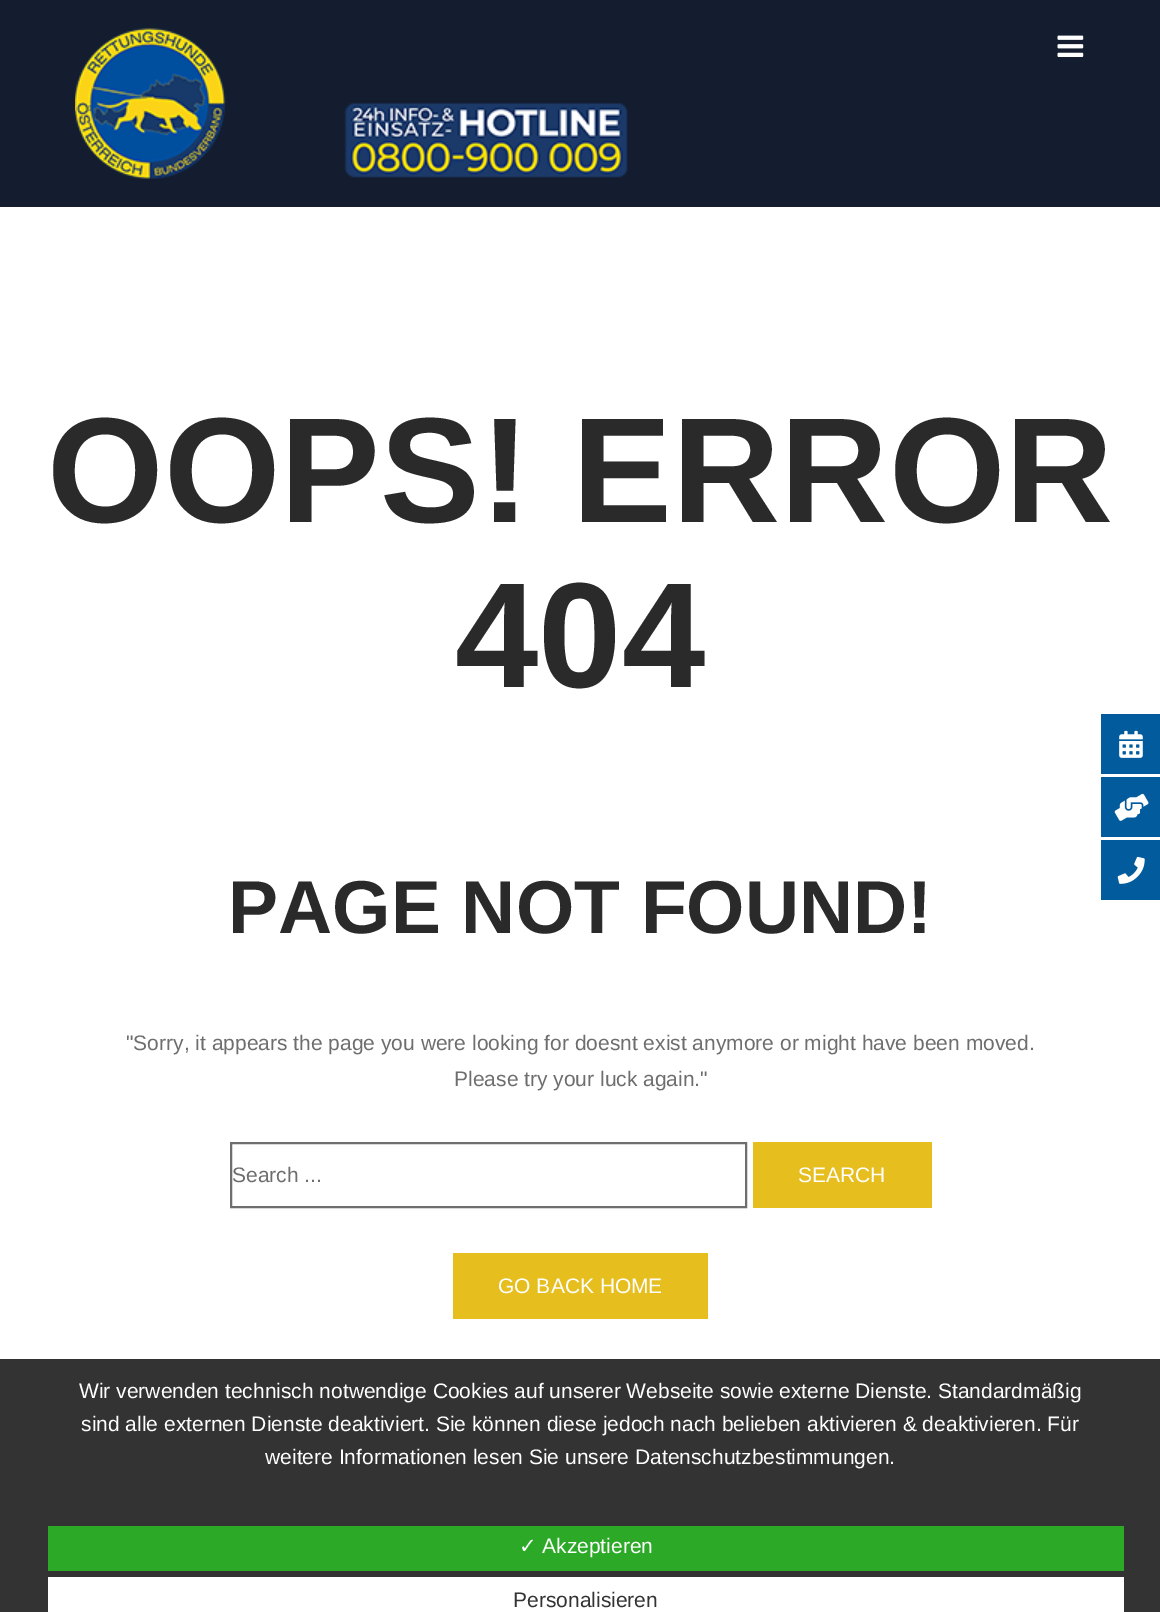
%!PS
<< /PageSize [1160 1612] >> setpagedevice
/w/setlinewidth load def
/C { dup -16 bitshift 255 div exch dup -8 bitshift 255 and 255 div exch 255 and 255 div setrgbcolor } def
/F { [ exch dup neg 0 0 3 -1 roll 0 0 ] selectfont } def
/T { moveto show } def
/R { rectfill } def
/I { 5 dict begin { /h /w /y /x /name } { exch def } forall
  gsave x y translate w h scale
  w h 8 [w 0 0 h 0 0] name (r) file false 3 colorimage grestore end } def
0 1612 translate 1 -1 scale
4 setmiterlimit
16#FFFFFF C
0 0 1160 1612 R
16#131D2F C
0 0 1160 207 R
(1.rgb) 75 28 553 151 I
(2.rgb) 1057 35 27 22 I
/LiberationSans-Bold 150 F
16#2A2A2A C
(OOPS! ERROR) 47 522 T
(404) 455 687 T
/LiberationSans-Bold 75 F
(PAGE NOT FOUND!) 228 933 T
/LiberationSans-Regular 21 F
16#6E6E6E C
("Sorry, it appears the page you were looking for doesnt exist anymore or might have been moved.) 126 1050 T
(Please try your luck again.") 454 1086 T
2 w
231 1143 515 64 rectstroke
(Search ...) 232 1182 T
16#E6BE1D C
753 1142 179 66 R
16#FFFFFF C
(SEARCH) 798 1182 T
16#E6BE1D C
453 1253 255 66 R
16#FFFFFF C
(GO BACK HOME) 498 1293 T
16#015B9C C
1101 714 59 60 R
(3.rgb) 1119 730 24 28 I
1101 777 59 60 R
(4.rgb) 1114 793 35 28 I
1101 840 59 60 R
(5.rgb) 1117 856 28 28 I
16#333333 C
0 1359 1160 253 R
16#FFFFFF C
(Wir verwenden technisch notwendige Cookies auf unserer Webseite sowie externe Dienste. Standardmäßig) 79 1398 T
(sind alle externen Dienste deaktiviert. Sie können diese jedoch nach belieben aktivieren & deaktivieren. Für) 81 1431 T
(weitere Informationen lesen Sie unsere Datenschutzbestimmungen.) 265 1464 T
16#2CAA27 C
48 1526 1076 45 R
/DejaVuSans-Regular 21 F
16#FFFFFF C
(✓) 519 1553 T
/LiberationSans-Regular 21 F
(Akzeptieren) 542 1553 T
48 1577 1076 35 R
16#333333 C
(Personalisieren) 513 1607 T
showpage
